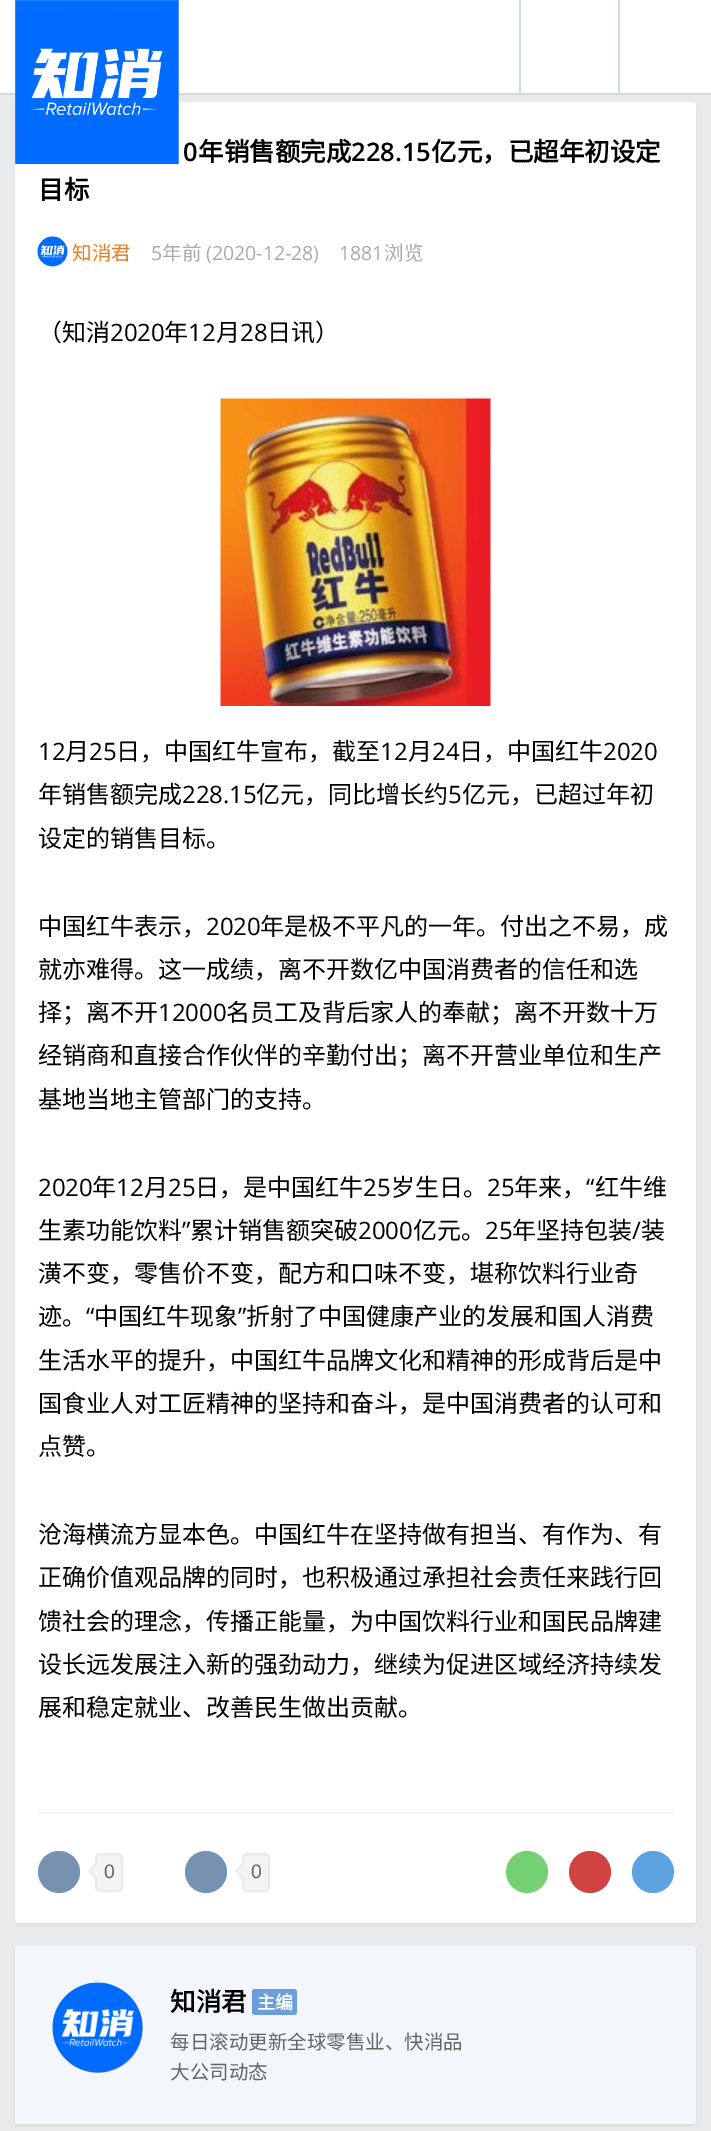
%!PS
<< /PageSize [711 2131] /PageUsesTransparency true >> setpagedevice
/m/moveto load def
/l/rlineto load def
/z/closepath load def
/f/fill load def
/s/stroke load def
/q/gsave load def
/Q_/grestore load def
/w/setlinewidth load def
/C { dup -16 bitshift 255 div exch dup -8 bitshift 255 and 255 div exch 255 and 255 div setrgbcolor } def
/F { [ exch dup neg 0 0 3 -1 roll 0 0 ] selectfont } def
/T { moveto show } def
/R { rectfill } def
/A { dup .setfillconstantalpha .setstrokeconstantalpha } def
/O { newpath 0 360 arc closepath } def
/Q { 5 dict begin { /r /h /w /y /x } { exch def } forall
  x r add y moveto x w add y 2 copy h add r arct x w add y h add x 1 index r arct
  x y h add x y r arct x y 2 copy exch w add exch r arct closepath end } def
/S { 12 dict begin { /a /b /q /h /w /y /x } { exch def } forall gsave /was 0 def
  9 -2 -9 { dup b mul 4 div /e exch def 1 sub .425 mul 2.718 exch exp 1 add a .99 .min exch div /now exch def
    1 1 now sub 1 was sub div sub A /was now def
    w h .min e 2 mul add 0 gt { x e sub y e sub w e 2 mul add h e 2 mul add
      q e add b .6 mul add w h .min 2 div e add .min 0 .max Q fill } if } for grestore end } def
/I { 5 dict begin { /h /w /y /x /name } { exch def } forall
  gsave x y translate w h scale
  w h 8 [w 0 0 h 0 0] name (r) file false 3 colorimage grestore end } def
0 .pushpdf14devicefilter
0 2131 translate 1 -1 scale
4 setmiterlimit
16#E9EAEC C
0 0 711 2131 R
16#FFFFFF C
0 0 711 93 R
16#CDDCE7 C
0 93 711 2 R
16#000000 C
15 104 681 1821 3 1.5 .05 S
16#FFFFFF C
15 102 681 1821 3 Q f
(1.rgb) 15 0 164 164 I
16#CDDCE7 C
519 0 2 93 R
618 0 2 93 R
/OpenSans-SemiBold 25.5 F
16#000000 C
(0) 183 161 T
/NotoSansCJKSC-Bold 25.5 F
(年销售额完成) 198 161 T
/OpenSans-SemiBold 25.5 F
(228.15) 351 161 T
/NotoSansCJKSC-Bold 25.5 F
(亿元，已超年初设定) 431 161 T
(目标) 38 199 T
(2.rgb) 37 236 31 31 I
/NotoSansCJKSC-Regular 19.5 F
16#E67E22 C
(知消君) 72 260 T
/OpenSans-Regular 19.5 F
16#AAAAAA C
(5) 151 260 T
/NotoSansCJKSC-Regular 19.5 F
(年前) 162 260 T
/OpenSans-Regular 19.5 F
(\(2020-12-28\)) 206 260 T
(1881) 339 260 T
/NotoSansCJKSC-Regular 19.5 F
(浏览) 384 260 T
/NotoSansCJKSC-Regular 24 F
16#000000 C
(（知消) 38 341 T
/OpenSans-Regular 24 F
(2020) 110 341 T
/NotoSansCJKSC-Regular 24 F
(年) 164 341 T
/OpenSans-Regular 24 F
(12) 188 341 T
/NotoSansCJKSC-Regular 24 F
(月) 216 341 T
/OpenSans-Regular 24 F
(28) 240 341 T
/NotoSansCJKSC-Regular 24 F
(日讯）) 267 341 T
(3.rgb) 220 398 271 308 I
/OpenSans-Regular 24 F
(12) 38 760 T
/NotoSansCJKSC-Regular 24 F
(月) 65 760 T
/OpenSans-Regular 24 F
(25) 89 760 T
/NotoSansCJKSC-Regular 24 F
(日，中国红牛宣布，截至) 116 760 T
/OpenSans-Regular 24 F
(12) 380 760 T
/NotoSansCJKSC-Regular 24 F
(月) 408 760 T
/OpenSans-Regular 24 F
(24) 432 760 T
/NotoSansCJKSC-Regular 24 F
(日，中国红牛) 459 760 T
/OpenSans-Regular 24 F
(2020) 603 760 T
/NotoSansCJKSC-Regular 24 F
(年销售额完成) 38 803 T
/OpenSans-Regular 24 F
(228.15) 182 803 T
/NotoSansCJKSC-Regular 24 F
(亿元，同比增长约) 256 803 T
/OpenSans-Regular 24 F
(5) 448 803 T
/NotoSansCJKSC-Regular 24 F
(亿元，已超过年初) 462 803 T
(设定的销售目标。) 38 847 T
(中国红牛表示，) 38 935 T
/OpenSans-Regular 24 F
(2020) 206 935 T
/NotoSansCJKSC-Regular 24 F
(年是极不平凡的一年。付出之不易，成) 260 935 T
(就亦难得。这一成绩，离不开数亿中国消费者的信任和选) 38 978 T
(择；离不开) 38 1021 T
/OpenSans-Regular 24 F
(12000) 158 1021 T
/NotoSansCJKSC-Regular 24 F
(名员工及背后家人的奉献；离不开数十万) 226 1021 T
(经销商和直接合作伙伴的辛勤付出；离不开营业单位和生产) 38 1064 T
(基地当地主管部门的支持。) 38 1108 T
/OpenSans-Regular 24 F
(2020) 38 1196 T
/NotoSansCJKSC-Regular 24 F
(年) 92 1196 T
/OpenSans-Regular 24 F
(12) 116 1196 T
/NotoSansCJKSC-Regular 24 F
(月) 144 1196 T
/OpenSans-Regular 24 F
(25) 168 1196 T
/NotoSansCJKSC-Regular 24 F
(日，是中国红牛) 195 1196 T
/OpenSans-Regular 24 F
(25) 363 1196 T
/NotoSansCJKSC-Regular 24 F
(岁生日。) 391 1196 T
/OpenSans-Regular 24 F
(25) 487 1196 T
/NotoSansCJKSC-Regular 24 F
(年来，) 514 1196 T
/OpenSans-Regular 24 F
(“) 586 1196 T
/NotoSansCJKSC-Regular 24 F
(红牛维) 595 1196 T
(生素功能饮料) 38 1239 T
/OpenSans-Regular 24 F
(”) 182 1239 T
/NotoSansCJKSC-Regular 24 F
(累计销售额突破) 190 1239 T
/OpenSans-Regular 24 F
(2000) 358 1239 T
/NotoSansCJKSC-Regular 24 F
(亿元。) 413 1239 T
/OpenSans-Regular 24 F
(25) 485 1239 T
/NotoSansCJKSC-Regular 24 F
(年坚持包装) 512 1239 T
/OpenSans-Regular 24 F
(/) 632 1239 T
/NotoSansCJKSC-Regular 24 F
(装) 641 1239 T
(潢不变，零售价不变，配方和口味不变，堪称饮料行业奇) 38 1282 T
(迹。) 38 1325 T
/OpenSans-Regular 24 F
(“) 86 1325 T
/NotoSansCJKSC-Regular 24 F
(中国红牛现象) 94 1325 T
/OpenSans-Regular 24 F
(”) 238 1325 T
/NotoSansCJKSC-Regular 24 F
(折射了中国健康产业的发展和国人消费) 246 1325 T
(生活水平的提升，中国红牛品牌文化和精神的形成背后是中) 38 1369 T
(国食业人对工匠精神的坚持和奋斗，是中国消费者的认可和) 38 1412 T
(点赞。) 38 1455 T
(沧海横流方显本色。中国红牛在坚持做有担当、有作为、有) 38 1543 T
(正确价值观品牌的同时，也积极通过承担社会责任来践行回) 38 1586 T
(馈社会的理念，传播正能量，为中国饮料行业和国民品牌建) 38 1630 T
(设长远发展注入新的强劲动力，继续为促进区域经济持续发) 38 1673 T
(展和稳定就业、改善民生做出贡献。) 38 1716 T
16#F4F4F4 C
38 1812 636 2 R
16#7791B0 C
59 1872 21 O f
16#F4F4F4 C
96 1854 26 37 4 Q q f Q_
16#E9EAEC C
2 w
s
16#F4F4F4 C
96.5 1864.5 m 6 6.5 l -6 6 l -6.5 -6 l z f
16#E9EAEC C
89 1870 m 7.5 7 l -1.5 1.5 l -7 -7.5 l z f
95 1863.5 m 1.5 1 l -7.5 7.5 l -1 -1 l z f
/LiberationSans-Regular 19.5 F
16#666666 C
(0) 104 1878 T
16#7791B0 C
206 1872 21 O f
16#F4F4F4 C
243 1854 26 37 4 Q q f Q_
16#E9EAEC C
s
16#F4F4F4 C
243.5 1864.5 m 6 6.5 l -6 6 l -6.5 -6 l z f
16#E9EAEC C
236 1870 m 7.5 7 l -1.5 1.5 l -7 -7.5 l z f
242 1863.5 m 1.5 1 l -7.5 7.5 l -1 -1 l z f
16#666666 C
(0) 251 1878 T
16#75D172 C
527 1872 21 O f
16#D04340 C
590 1872 21 O f
16#5CA3E1 C
653 1872 21 O f
16#000000 C
15 1947 681 179 3 1.5 .05 S
16#F3F7FB C
15 1946 681 178 3 Q f
16#AAAAAA C
98 2028 45 O f
(4.rgb) 52 1982 91 91 I
/NotoSansCJKSC-Bold 25.5 F
16#000000 C
(知消君) 170 2011 T
16#6B9EDB C
252 1989 45 26 3 Q f
/NotoSansCJKSC-Bold 18 F
16#FFFFFF C
(主编) 257 2009 T
/NotoSansCJKSC-Regular 19.5 F
16#666666 C
(每日滚动更新全球零售业、快消品) 170 2049 T
(大公司动态) 170 2079 T
.poppdf14devicefilter showpage
